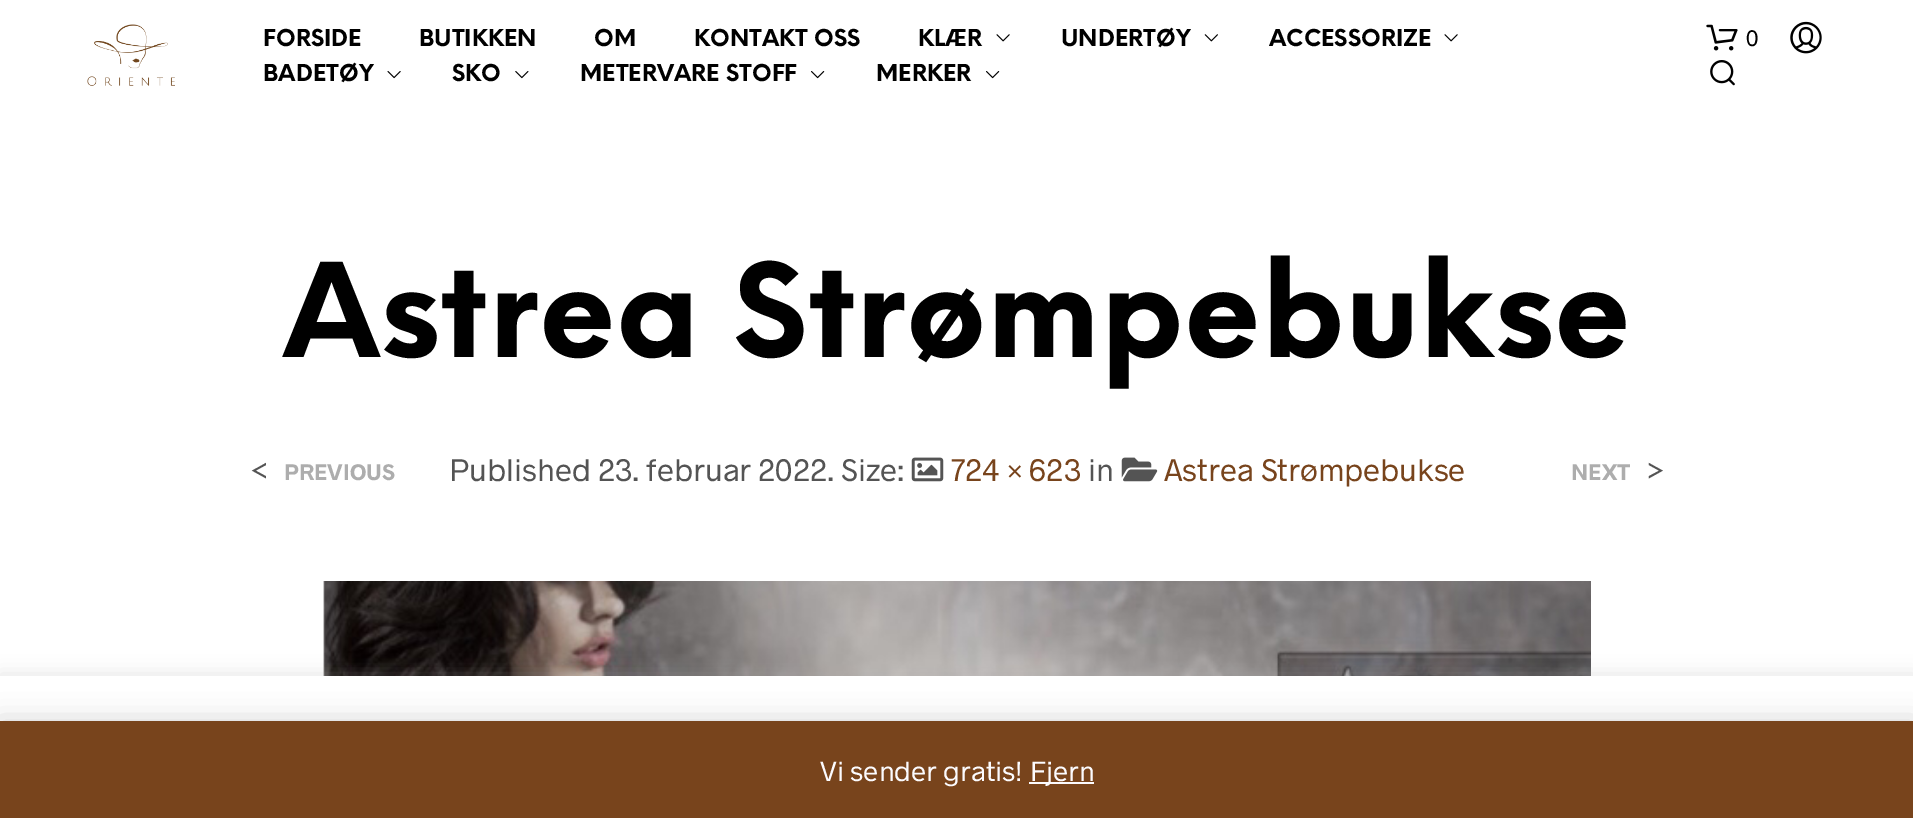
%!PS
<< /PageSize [1913 818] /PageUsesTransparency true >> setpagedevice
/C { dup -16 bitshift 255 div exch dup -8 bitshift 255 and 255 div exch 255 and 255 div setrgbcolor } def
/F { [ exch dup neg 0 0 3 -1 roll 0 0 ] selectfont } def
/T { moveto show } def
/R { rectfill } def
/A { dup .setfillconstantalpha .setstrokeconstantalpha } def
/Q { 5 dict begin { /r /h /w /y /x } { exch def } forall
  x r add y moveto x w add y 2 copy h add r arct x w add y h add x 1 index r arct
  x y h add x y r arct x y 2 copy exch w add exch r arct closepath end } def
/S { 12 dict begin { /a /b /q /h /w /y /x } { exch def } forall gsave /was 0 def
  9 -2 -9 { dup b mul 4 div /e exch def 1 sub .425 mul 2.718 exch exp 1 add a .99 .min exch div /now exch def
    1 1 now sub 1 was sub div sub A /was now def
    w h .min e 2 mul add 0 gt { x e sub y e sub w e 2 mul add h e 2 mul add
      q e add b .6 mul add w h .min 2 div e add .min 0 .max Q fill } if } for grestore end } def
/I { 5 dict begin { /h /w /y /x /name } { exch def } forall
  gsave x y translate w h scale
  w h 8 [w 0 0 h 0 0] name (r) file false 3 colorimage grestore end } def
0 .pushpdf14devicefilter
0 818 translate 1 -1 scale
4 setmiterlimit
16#FFFFFF C
0 0 1913 818 R
(1.rgb) 87 24 88 62 I
/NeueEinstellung-Bold 22.75 F
16#000000 C
(FORSIDE) 263 46 T
(BUTIKKEN) 419 46 T
(OM) 594 46 T
(KONTAKT OSS) 694 46 T
(KLÆR) 918 46 T
(2.rgb) 996 34 14 8 I
(UNDERTØY) 1061 46 T
(3.rgb) 1204 34 14 8 I
(ACCESSORIZE) 1269 46 T
(2.rgb) 1444 34 14 8 I
(BADETØY) 263 81 T
(4.rgb) 387 71 14 8 I
(SKO) 452 81 T
(5.rgb) 515 71 14 8 I
(METERVARE STOFF) 580 81 T
(6.rgb) 811 71 14 8 I
(MERKER) 876 81 T
(6.rgb) 986 71 14 8 I
(7.rgb) 1706 24 32 27 I
/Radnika-Regular 22.75 F
(0) 1746 46 T
(8.rgb) 1790 21 32 33 I
(9.rgb) 1710 60 25 26 I
/NeueEinstellung-Bold 127 F
(Astrea Strømpebukse) 283 357 T
/Radnika-Regular 31.5 F
16#545454 C
(Published 23. februar 2022. Size:) 449 481 T
(10.rgb) 911 457 33 25 I
16#78441C C
(724 × 623) 951 481 T
16#545454 C
(in) 1088 481 T
(11.rgb) 1121 457 37 25 I
16#78441C C
(Astrea Strømpebukse) 1164 481 T
16#545454 C
(<) 250 481 T
/Radnika-Bold 22.75 F
16#ADADAD C
(PREVIOUS) 284 480 T
(NEXT) 1571 480 T
/Radnika-Regular 31.5 F
16#545454 C
(>) 1646 481 T
(12.rgb) 323 581 1268 95 I
16#ACABAB C
0 674 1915 143 0 9 .3 S
16#FFFFFF C
0 676 1913 45 R
16#000000 C
0 723 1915 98 0 14 .2 S
16#78441C C
0 721 1913 97 R
/Radnika-Regular 28 F
16#FCFBFE C
(Vi sender gratis!) 820 781 T
1029 782 65 2 R
(Fjern) 1030 781 T
.poppdf14devicefilter showpage
